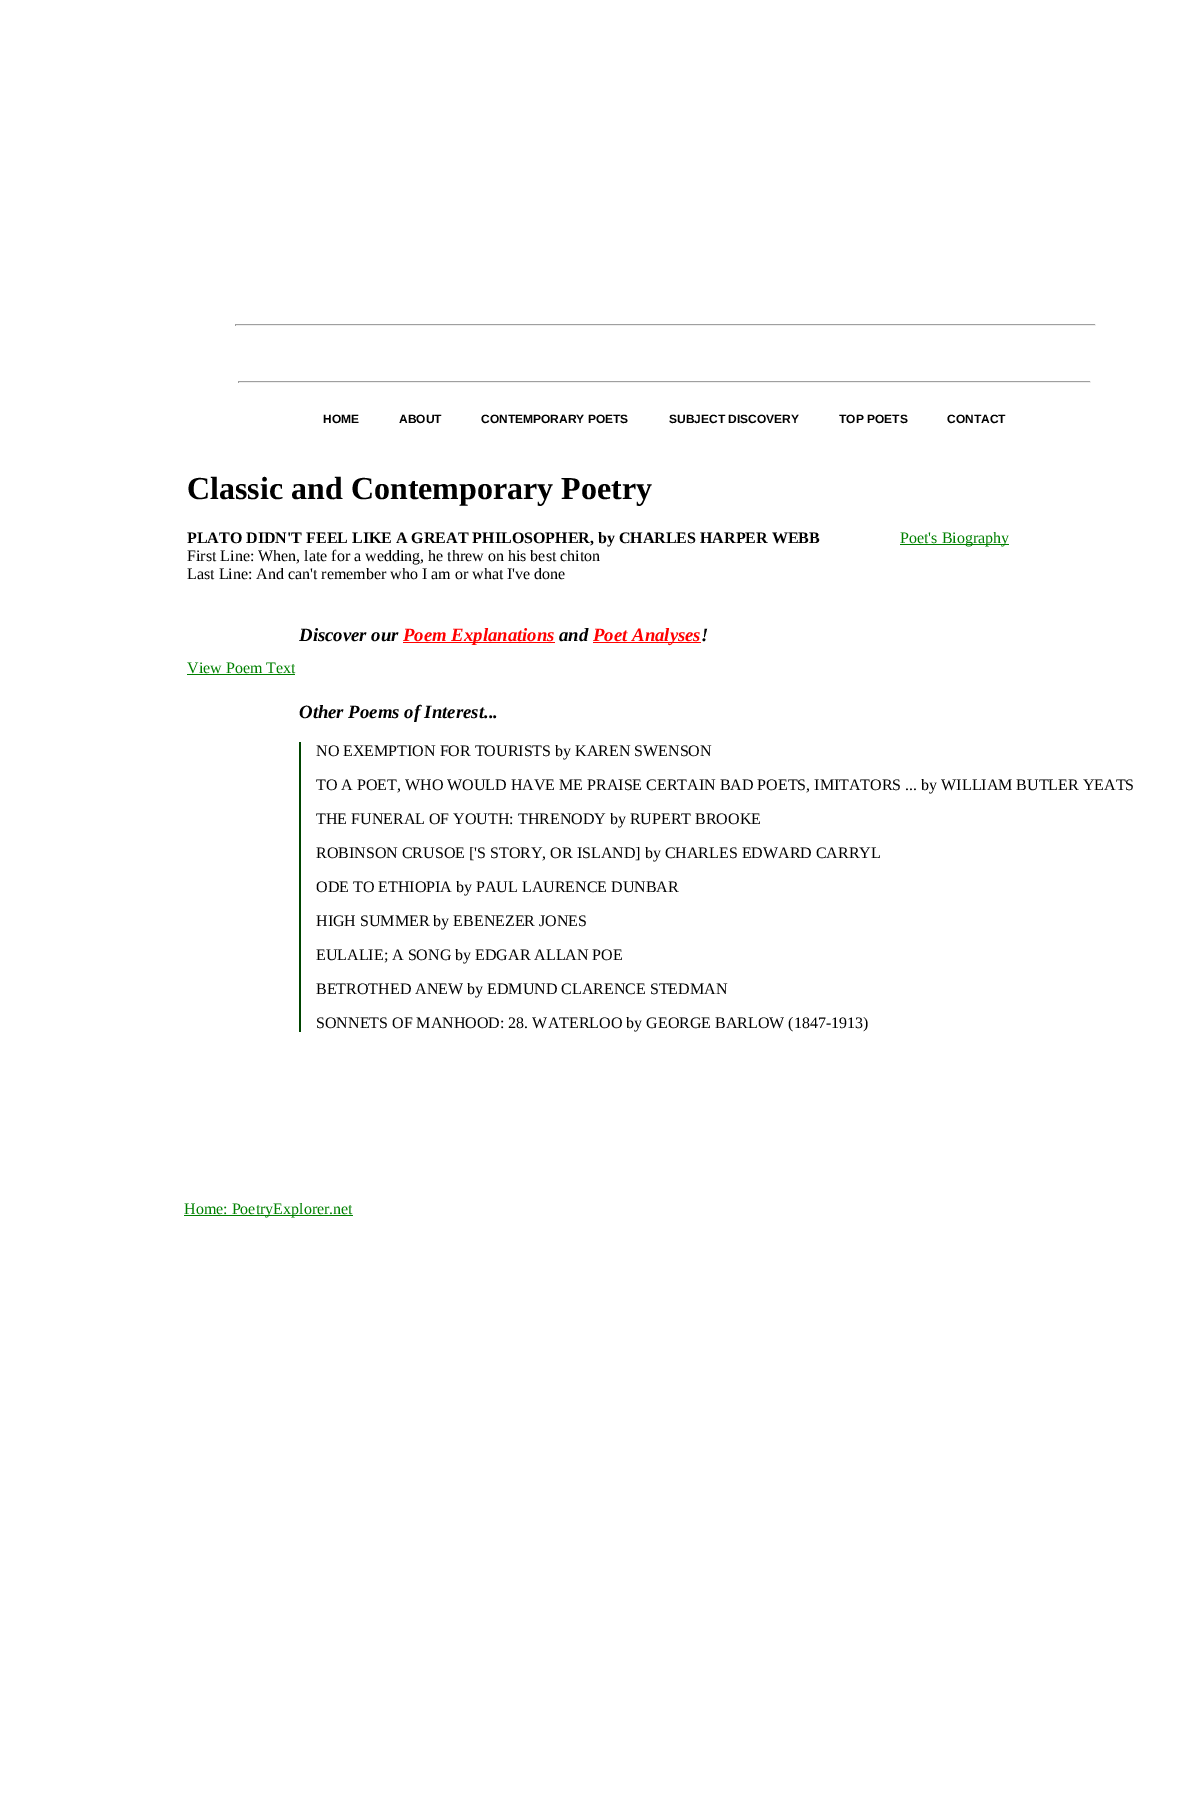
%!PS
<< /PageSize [1203 1820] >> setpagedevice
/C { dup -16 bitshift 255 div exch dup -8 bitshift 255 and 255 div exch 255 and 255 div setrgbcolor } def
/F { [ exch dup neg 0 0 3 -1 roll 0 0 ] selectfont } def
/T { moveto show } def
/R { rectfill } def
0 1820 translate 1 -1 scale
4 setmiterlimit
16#FFFFFF C
0 0 1203 1820 R
16#9F9F9F C
235 324 861 1 R
16#EEEEEE C
1095 324 1 2 R
235 325 861 1 R
16#9F9F9F C
235 324 1 2 R
238 381 853 1 R
16#EEEEEE C
1090 381 1 2 R
238 382 853 1 R
16#9F9F9F C
238 381 1 2 R
/LiberationSans-Bold 12 F
16#000000 C
(HOME) 323 423 T
(ABOUT) 399 423 T
(CONTEMPORARY POETS) 481 423 T
(SUBJECT DISCOVERY) 669 423 T
(TOP POETS) 839 423 T
(CONTACT) 947 423 T
/LiberationSerif-Bold 32 F
(Classic and Contemporary Poetry) 187 499 T
/LiberationSerif-Bold 16 F
(PLATO DIDN'T FEEL LIKE A GREAT PHILOSOPHER, by CHARLES HARPER WEBB) 187 543 T
16#008000 C
900 544 109 1 R
/LiberationSerif-Regular 16 F
(Poet's Biography) 900 543 T
16#000000 C
(First Line: When, late for a wedding, he threw on his best chiton) 187 561 T
(Last Line: And can't remember who I am or what I've done) 187 579 T
16#008000 C
(View Poem Text) 187 673 T
187 674 108 1 R
/LiberationSerif-BoldItalic 18.75 F
16#000000 C
(Discover our) 299 641 T
16#FF0000 C
403 642 152 1 R
(Poem Explanations) 403 641 T
16#000000 C
(and) 559 641 T
16#FF0000 C
593 642 108 1 R
(Poet Analyses) 593 641 T
16#000000 C
(!) 701 641 T
(Other Poems of Interest...) 299 718 T
16#004400 C
299 742 2 290 R
/LiberationSerif-Regular 16 F
16#000000 C
(NO EXEMPTION FOR TOURISTS by KAREN SWENSON) 316 756 T
(TO A POET, WHO WOULD HAVE ME PRAISE CERTAIN BAD POETS, IMITATORS ... by WILLIAM BUTLER YEATS) 316 790 T
(THE FUNERAL OF YOUTH: THRENODY by RUPERT BROOKE) 316 824 T
(ROBINSON CRUSOE ['S STORY, OR ISLAND] by CHARLES EDWARD CARRYL) 316 858 T
(ODE TO ETHIOPIA by PAUL LAURENCE DUNBAR) 316 892 T
(HIGH SUMMER by EBENEZER JONES) 316 926 T
(EULALIE; A SONG by EDGAR ALLAN POE) 316 960 T
(BETROTHED ANEW by EDMUND CLARENCE STEDMAN) 316 994 T
(SONNETS OF MANHOOD: 28. WATERLOO by GEORGE BARLOW \(1847-1913\)) 316 1028 T
16#008000 C
184 1215 169 1 R
(Home: PoetryExplorer.net) 184 1214 T
showpage
